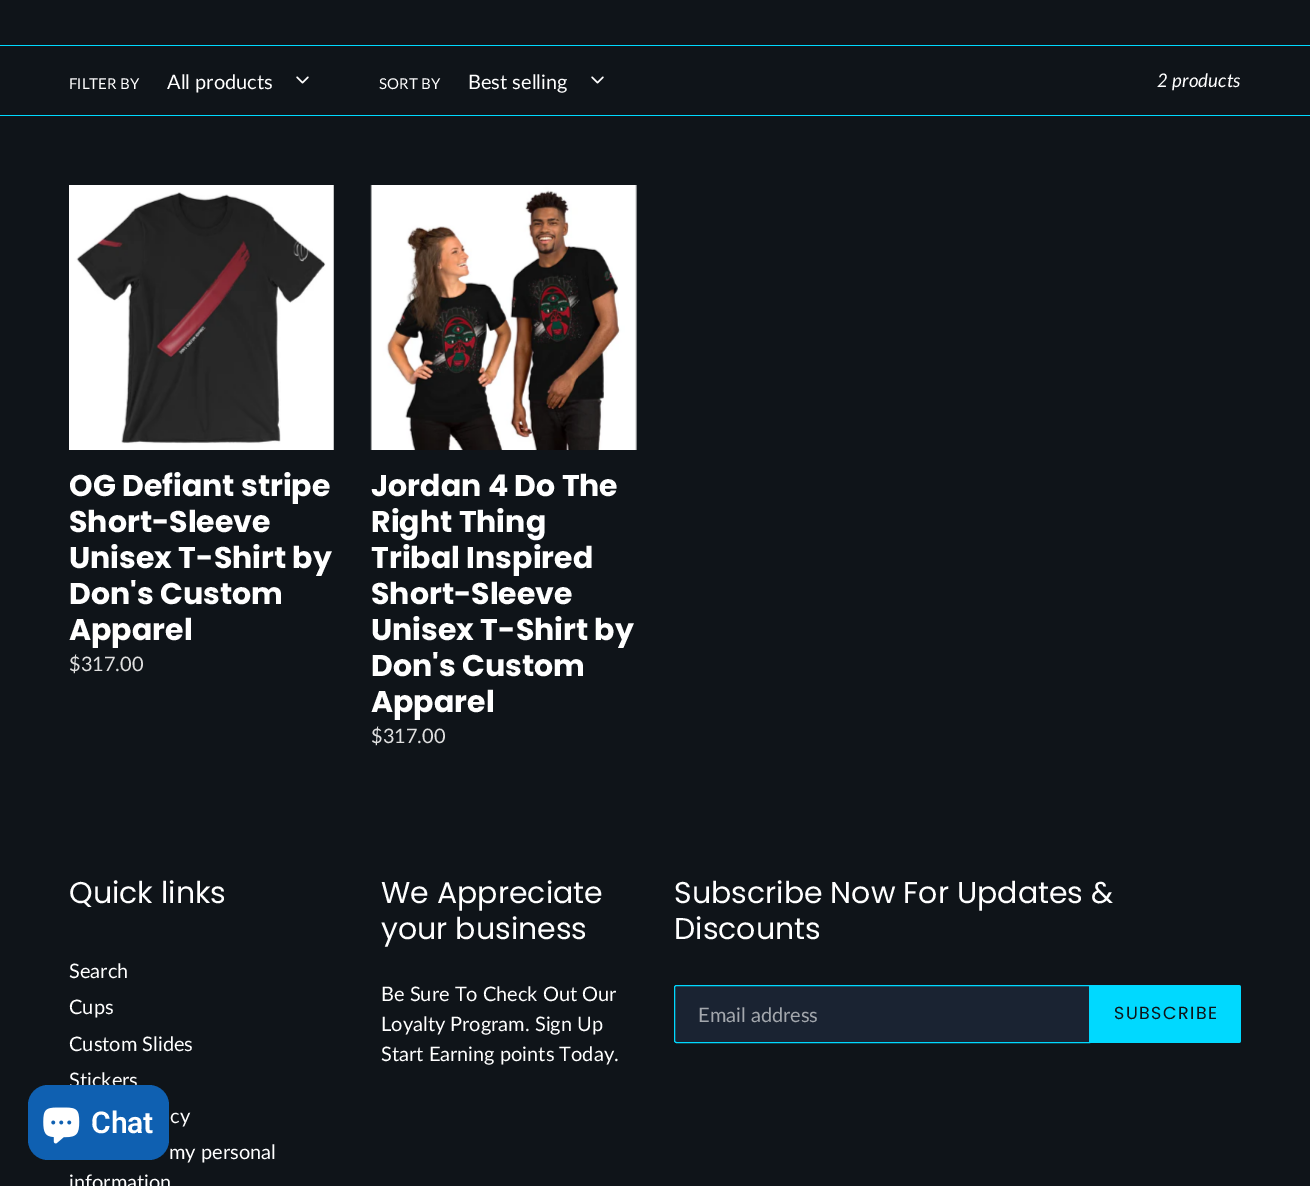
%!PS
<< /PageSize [1310 1186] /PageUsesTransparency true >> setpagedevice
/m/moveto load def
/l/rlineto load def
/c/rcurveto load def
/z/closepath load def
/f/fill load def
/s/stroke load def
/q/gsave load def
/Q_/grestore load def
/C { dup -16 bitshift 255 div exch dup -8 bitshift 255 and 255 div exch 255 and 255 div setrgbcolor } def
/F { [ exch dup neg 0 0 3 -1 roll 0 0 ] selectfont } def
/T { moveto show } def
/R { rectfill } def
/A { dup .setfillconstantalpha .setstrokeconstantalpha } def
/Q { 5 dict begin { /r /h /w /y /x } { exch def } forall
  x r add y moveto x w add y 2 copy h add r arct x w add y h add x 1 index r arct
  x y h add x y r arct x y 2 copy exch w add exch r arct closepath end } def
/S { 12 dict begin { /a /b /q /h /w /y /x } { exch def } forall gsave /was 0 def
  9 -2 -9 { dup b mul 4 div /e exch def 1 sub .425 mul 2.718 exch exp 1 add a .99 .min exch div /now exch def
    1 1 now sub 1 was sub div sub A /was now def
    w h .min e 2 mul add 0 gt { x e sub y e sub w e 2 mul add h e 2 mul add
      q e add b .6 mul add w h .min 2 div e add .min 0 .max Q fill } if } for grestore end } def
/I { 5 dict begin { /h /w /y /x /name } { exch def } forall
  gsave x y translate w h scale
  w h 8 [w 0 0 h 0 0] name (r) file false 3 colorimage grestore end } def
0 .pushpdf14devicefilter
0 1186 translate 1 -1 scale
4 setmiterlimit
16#0F1419 C
0 0 1310 1186 R
16#00D9FF C
0 45 1310 1 R
0 115 1310 1 R
/Lato-Regular 15 F
16#FFFFFF C
(FILTER BY) 69 89 T
/Lato-Regular 20 F
(All products) 167 89 T
(1.rgb) 296 76 13 8 I
/Lato-Regular 15 F
(SORT BY) 379 89 T
/Lato-Regular 20 F
(Best selling) 468 89 T
(1.rgb) 591 76 13 8 I
/Lato-Italic 18.75 F
(2 products) 1157 87 T
(2.rgb) 69 185 265 265 I
/Poppins-Bold 30 F
(OG Defiant stripe) 69 496 T
(Short-Sleeve) 69 532 T
(Unisex T-Shirt by) 69 568 T
(Don's Custom) 69 604 T
(Apparel) 69 640 T
/Lato-Regular 20 F
16#E0E0E0 C
($317.00) 69 671 T
(3.rgb) 370 185 267 265 I
/Poppins-Bold 30 F
16#FFFFFF C
(Jordan 4 Do The) 371 496 T
(Right Thing) 371 532 T
(Tribal Inspired) 371 568 T
(Short-Sleeve) 371 604 T
(Unisex T-Shirt by) 371 640 T
(Don's Custom) 371 676 T
(Apparel) 371 712 T
/Lato-Regular 20 F
16#E0E0E0 C
($317.00) 371 743 T
/Poppins-Regular 30 F
16#FFFFFF C
(Quick links) 69 903 T
/Lato-Regular 20 F
(Search) 69 978 T
(Cups) 69 1014 T
(Custom Slides) 69 1051 T
(Stickers) 69 1087 T
(cy) 170 1123 T
(my personal) 169 1159 T
(information) 69 1189 T
/Poppins-Regular 30 F
(We Appreciate) 381 903 T
(your business) 381 939 T
/Lato-Regular 20 F
(Be Sure To Check Out Our) 381 1001 T
(Loyalty Program. Sign Up) 381 1031 T
(Start Earning points Today.) 381 1061 T
/Poppins-Regular 30 F
(Subscribe Now For Updates &) 674 903 T
(Discounts) 674 939 T
16#1A2332 C
676.5 985.5 m 413 0 l 0 57 l -413 0 l -1 0 -2 -1 -2 -2 c 0 -53 l 0 -1 1 -2 2 -2 c z q f Q_
16#00D9FF C
s
/Lato-Regular 20 F
16#A3A7AD C
(Email address) 698 1022 T
16#00D9FF C
1090 985 m 148.5 0 l 1.5 0 2.5 1 2.5 2.5 c 0 53 l 0 1.5 -1 2.5 -2.5 2.5 c -148.5 0 l z f
/Poppins-Regular 17.5 F
16#0F1419 C
1114 1019 m 1.5 0 (SUBSCRIBE) ashow
16#000000 C
28 1085 141 75 20 3 .15 S
16#0F60B1 C
28 1085 141 75 20 Q f
(4.rgb) 43 1107 37 37 I
/Roboto-SemiBold 30 F
16#FFFFFF C
(Chat) 91 1133 T
.poppdf14devicefilter showpage
